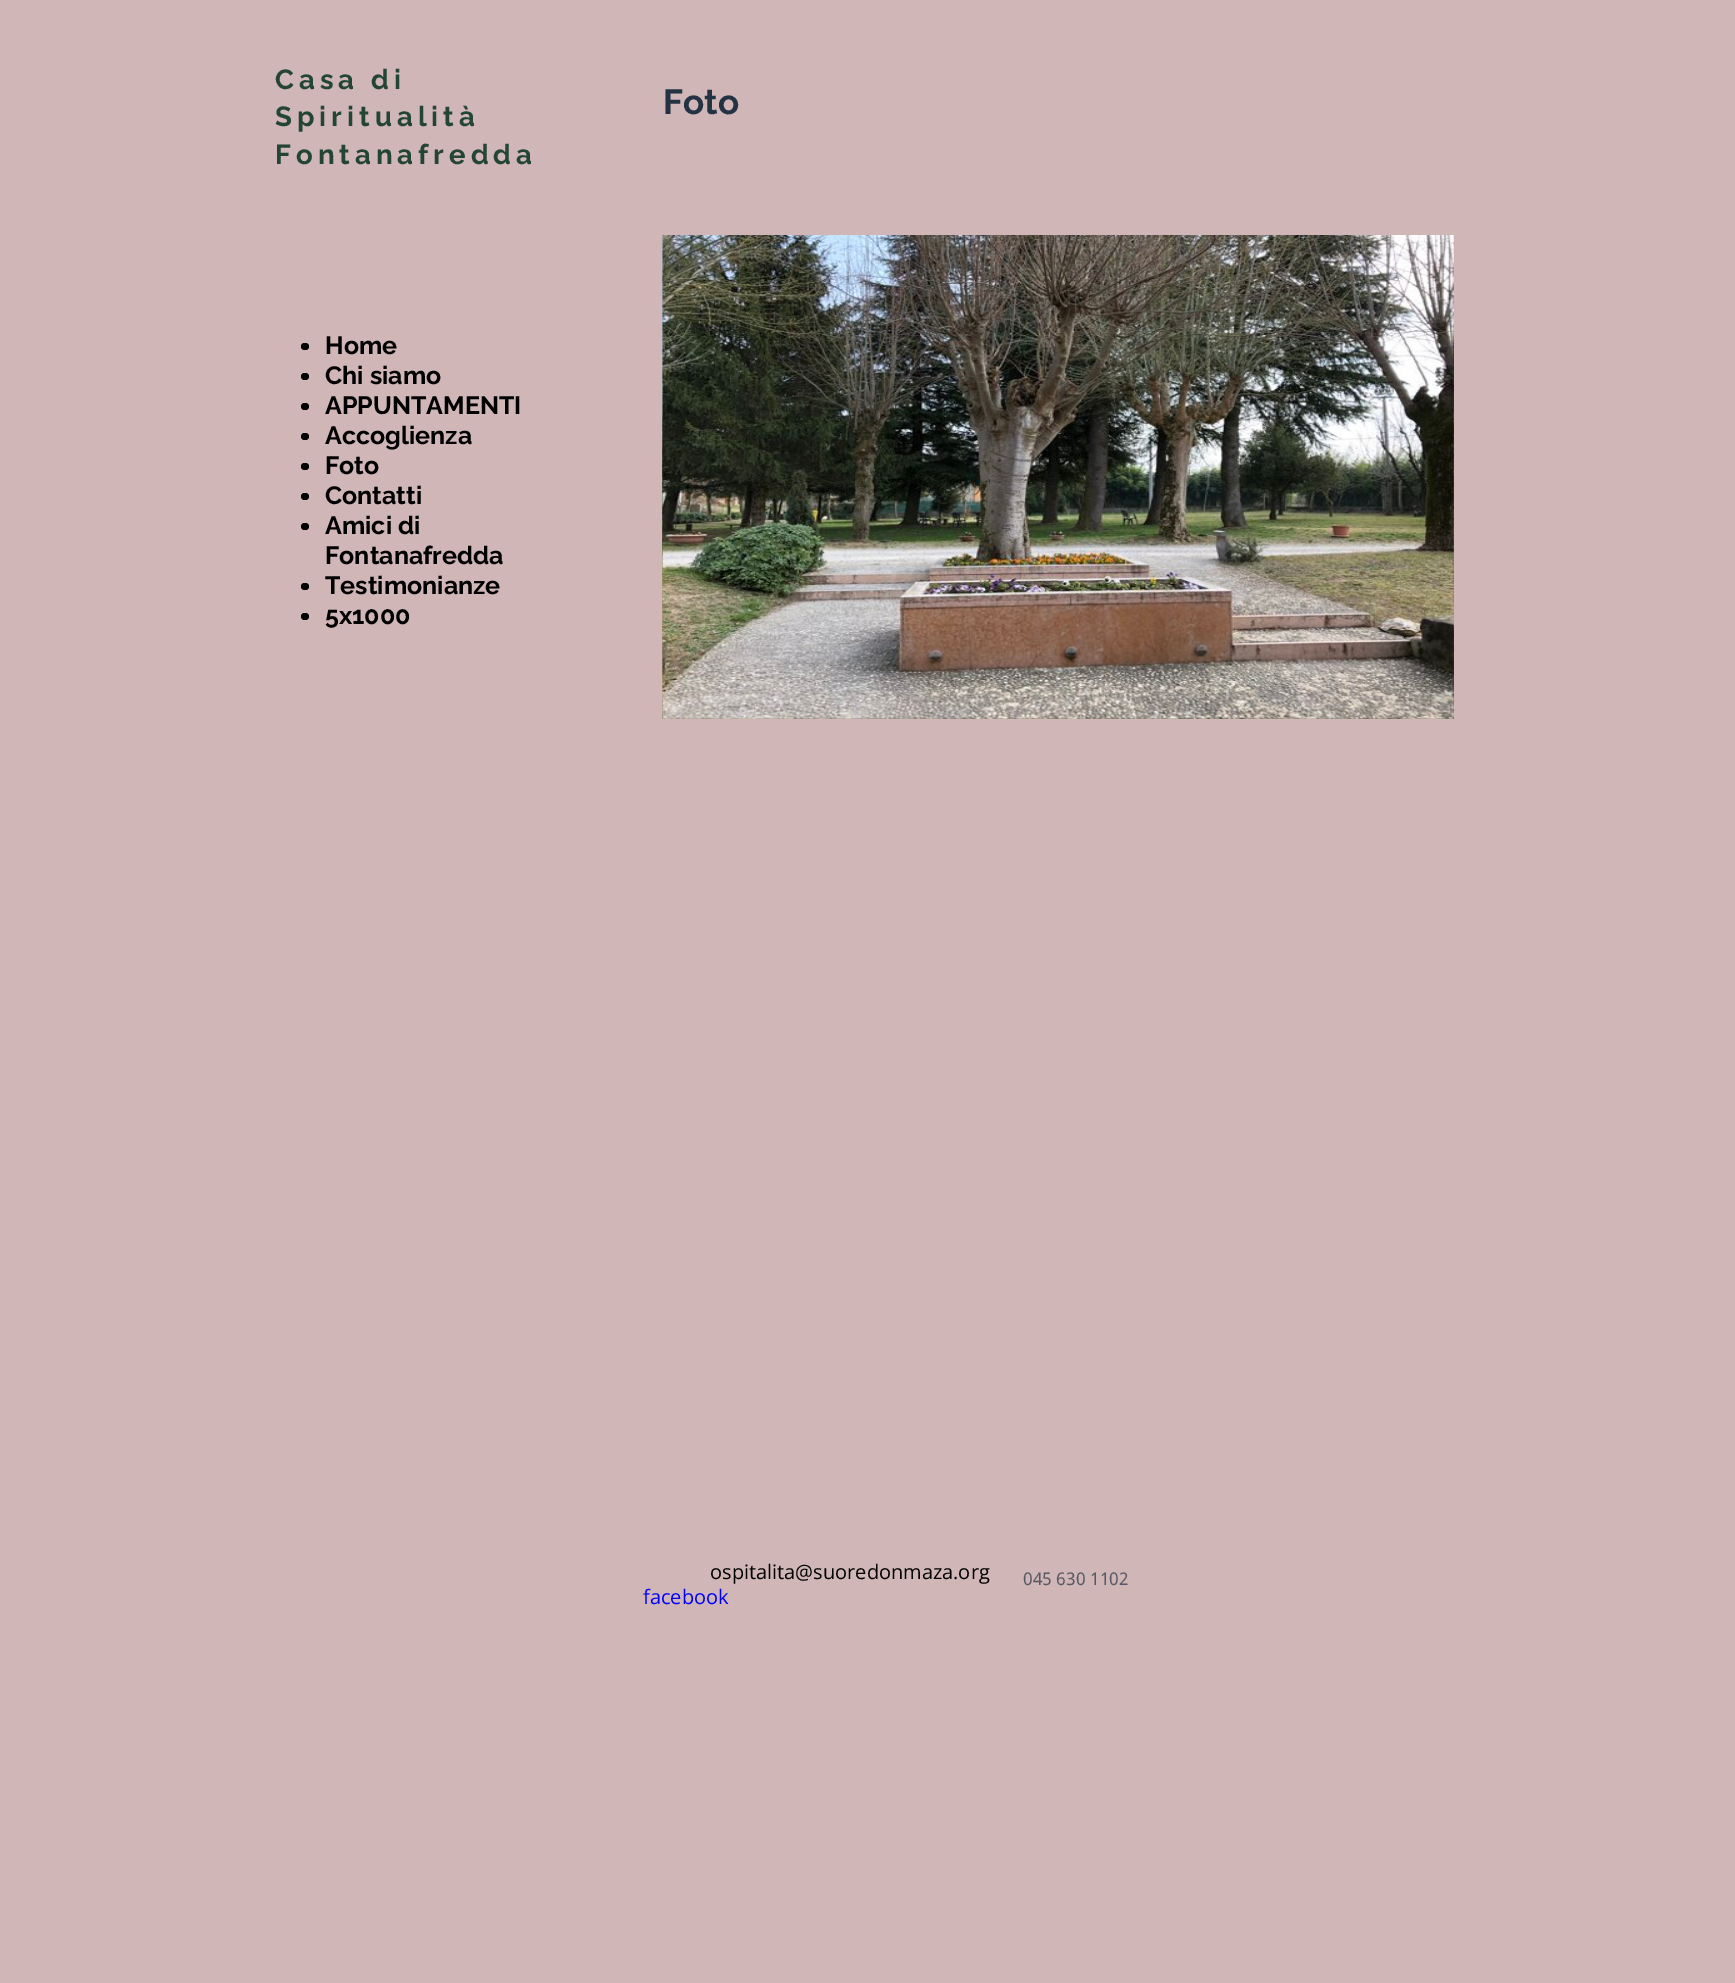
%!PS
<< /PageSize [1735 1983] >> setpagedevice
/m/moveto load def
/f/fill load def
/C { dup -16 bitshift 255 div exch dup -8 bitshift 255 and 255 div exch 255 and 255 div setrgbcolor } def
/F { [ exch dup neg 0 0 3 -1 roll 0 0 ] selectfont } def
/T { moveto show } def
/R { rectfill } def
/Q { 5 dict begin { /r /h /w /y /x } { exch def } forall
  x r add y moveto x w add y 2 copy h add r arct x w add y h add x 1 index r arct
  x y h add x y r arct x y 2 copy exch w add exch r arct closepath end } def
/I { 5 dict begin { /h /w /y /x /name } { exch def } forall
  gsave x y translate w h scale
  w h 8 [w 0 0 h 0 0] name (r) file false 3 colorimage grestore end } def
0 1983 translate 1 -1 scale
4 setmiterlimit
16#D0B6B6 C
0 0 1735 1983 R
/Raleway-Bold 27.6 F
16#234535 C
275 89 m 5 0 (Casa di) ashow
275 126 m 5 0 (Spiritualità) ashow
275 164 m 5 0 (Fontanafredda) ashow
/Raleway-Bold 35 F
16#233344 C
(Foto) 663 114 T
16#000000 C
301 343 8 7 3.5 Q f
/Raleway-Bold 25 F
(Home) 325 354 T
301 373 8 7 3.5 Q f
(Chi siamo) 325 384 T
301 403 8 7 3.5 Q f
(APPUNTAMENTI) 325 414 T
301 433 8 7 3.5 Q f
(Accoglienza) 325 444 T
301 463 8 7 3.5 Q f
(Foto) 325 474 T
301 493 8 7 3.5 Q f
(Contatti) 325 504 T
301 523 8 7 3.5 Q f
(Amici di) 325 534 T
(Fontanafredda) 325 564 T
301 583 8 7 3.5 Q f
(Testimonianze) 325 594 T
301 613 8 7 3.5 Q f
(5x1000) 325 624 T
(1.rgb) 662 235 792 484 I
(2.rgb) 662 235 792 484 I
(3.rgb) 662 235 792 484 I
(4.rgb) 662 235 792 484 I
(5.rgb) 662 235 792 484 I
(6.rgb) 662 235 792 484 I
(7.rgb) 662 235 792 484 I
(8.rgb) 662 235 792 484 I
(9.rgb) 662 235 792 484 I
(10.rgb) 662 235 792 484 I
(11.rgb) 662 235 792 484 I
(12.rgb) 662 235 792 484 I
(13.rgb) 662 235 792 484 I
(14.rgb) 662 235 792 484 I
(15.rgb) 662 235 792 484 I
(16.rgb) 662 235 792 484 I
/OpenSans-Regular 20 F
(ospitalita@suoredonmaza.org) 710 1579 T
/DroidSans-Regular 17.5 F
16#575A66 C
(045 630 1102) 1023 1585 T
/OpenSans-Regular 20 F
16#0000FF C
(facebook) 643 1604 T
showpage
